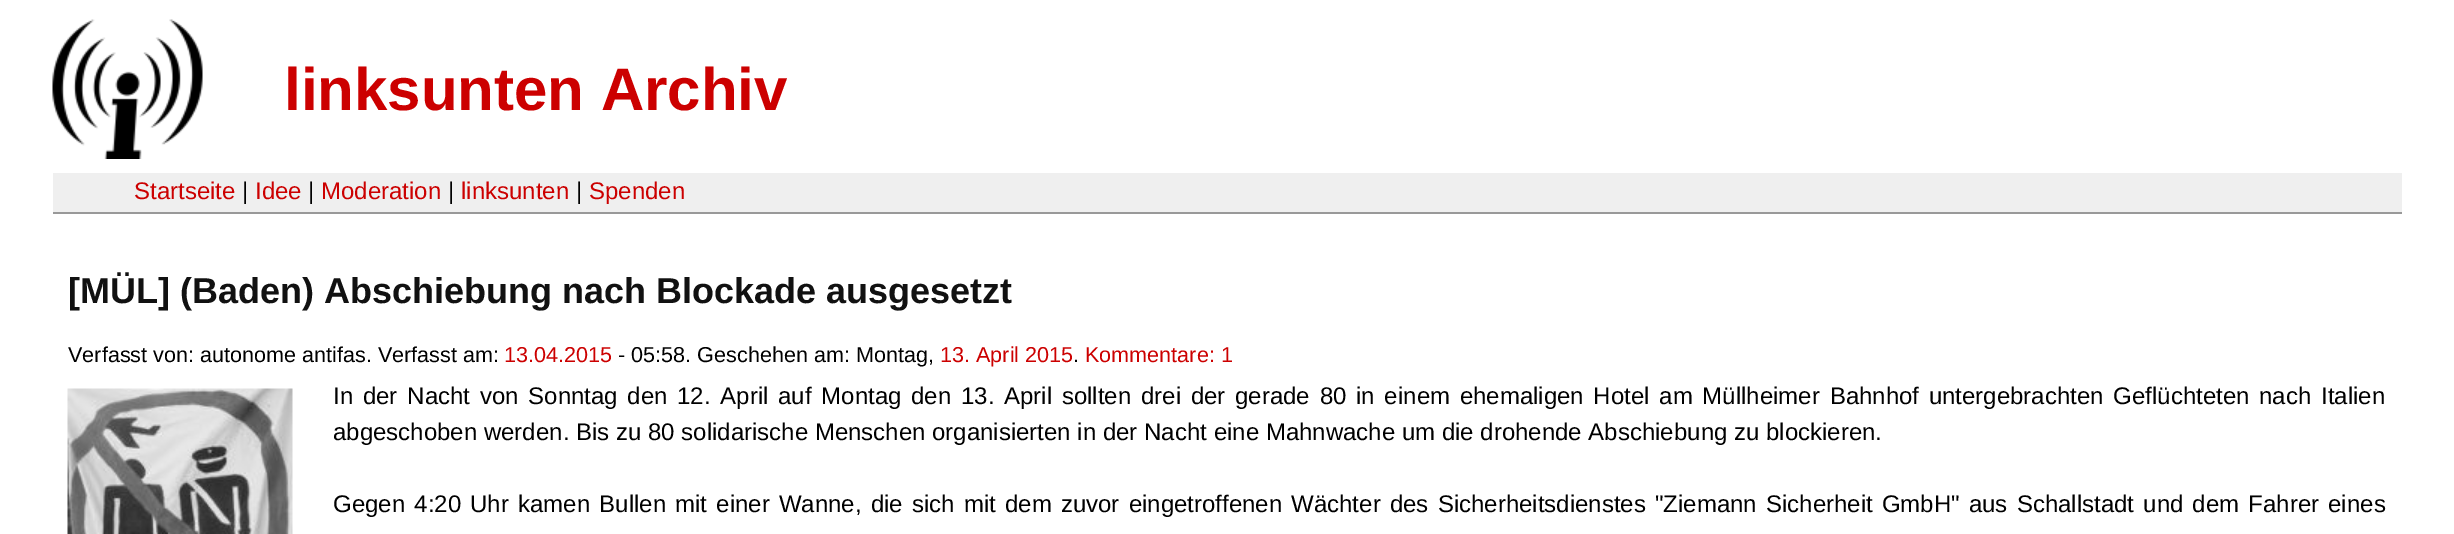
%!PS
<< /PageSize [2454 534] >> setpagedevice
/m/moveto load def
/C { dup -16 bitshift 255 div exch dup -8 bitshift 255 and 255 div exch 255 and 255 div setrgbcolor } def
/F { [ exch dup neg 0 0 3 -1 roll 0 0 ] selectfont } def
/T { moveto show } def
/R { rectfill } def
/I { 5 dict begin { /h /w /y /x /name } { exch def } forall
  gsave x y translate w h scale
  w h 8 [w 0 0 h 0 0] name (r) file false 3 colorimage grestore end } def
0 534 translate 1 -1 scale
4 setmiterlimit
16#FFFFFF C
0 0 2454 534 R
(1.rgb) 52 19 151 140 I
/LiberationSans-Bold 60 F
16#CC0000 C
(linksunten Archiv) 284 110 T
16#EFEFEF C
53 173 2349 39 R
16#999999 C
53 212 2349 2 R
/LiberationSans-Regular 24 F
16#CC0000 C
(Startseite) 134 199 T
16#000000 C
(|) 242 199 T
16#CC0000 C
(Idee) 255 199 T
16#000000 C
(|) 308 199 T
16#CC0000 C
(Moderation) 321 199 T
16#000000 C
(|) 448 199 T
16#CC0000 C
(linksunten) 461 199 T
16#000000 C
(|) 576 199 T
16#CC0000 C
(Spenden) 589 199 T
/LiberationSans-Bold 36 F
16#111111 C
([MÜL] \(Baden\) Abschiebung nach Blockade ausgesetzt) 68 303 T
/LiberationSans-Regular 21.6 F
16#000000 C
(Verfasst von: autonome antifas. Verfasst am:) 68 362 T
16#CC0000 C
(13.04.2015) 504 362 T
16#000000 C
(- 05:58. Geschehen am: Montag,) 618 362 T
16#CC0000 C
(13. April 2015) 940 362 T
16#000000 C
(.) 1073 362 T
16#CC0000 C
(Kommentare: 1) 1085 362 T
(2.rgb) 67 388 226 146 I
/LiberationSans-Regular 24 F
16#000000 C
333 404 m 3.1 0 32 (In der Nacht von Sonntag den 12. April auf Montag den 13. April sollten drei der gerade 80 in einem ehemaligen Hotel am Müllheimer Bahnhof untergebrachten Geflüchteten nach Italien) widthshow
(abgeschoben werden. Bis zu 80 solidarische Menschen organisierten in der Nacht eine Mahnwache um die drohende Abschiebung zu blockieren.) 333 440 T
333 512 m 2.5 0 32 (Gegen 4:20 Uhr kamen Bullen mit einer Wanne, die sich mit dem zuvor eingetroffenen Wächter des Sicherheitsdienstes "Ziemann Sicherheit GmbH" aus Schallstadt und dem Fahrer eines) widthshow
showpage
